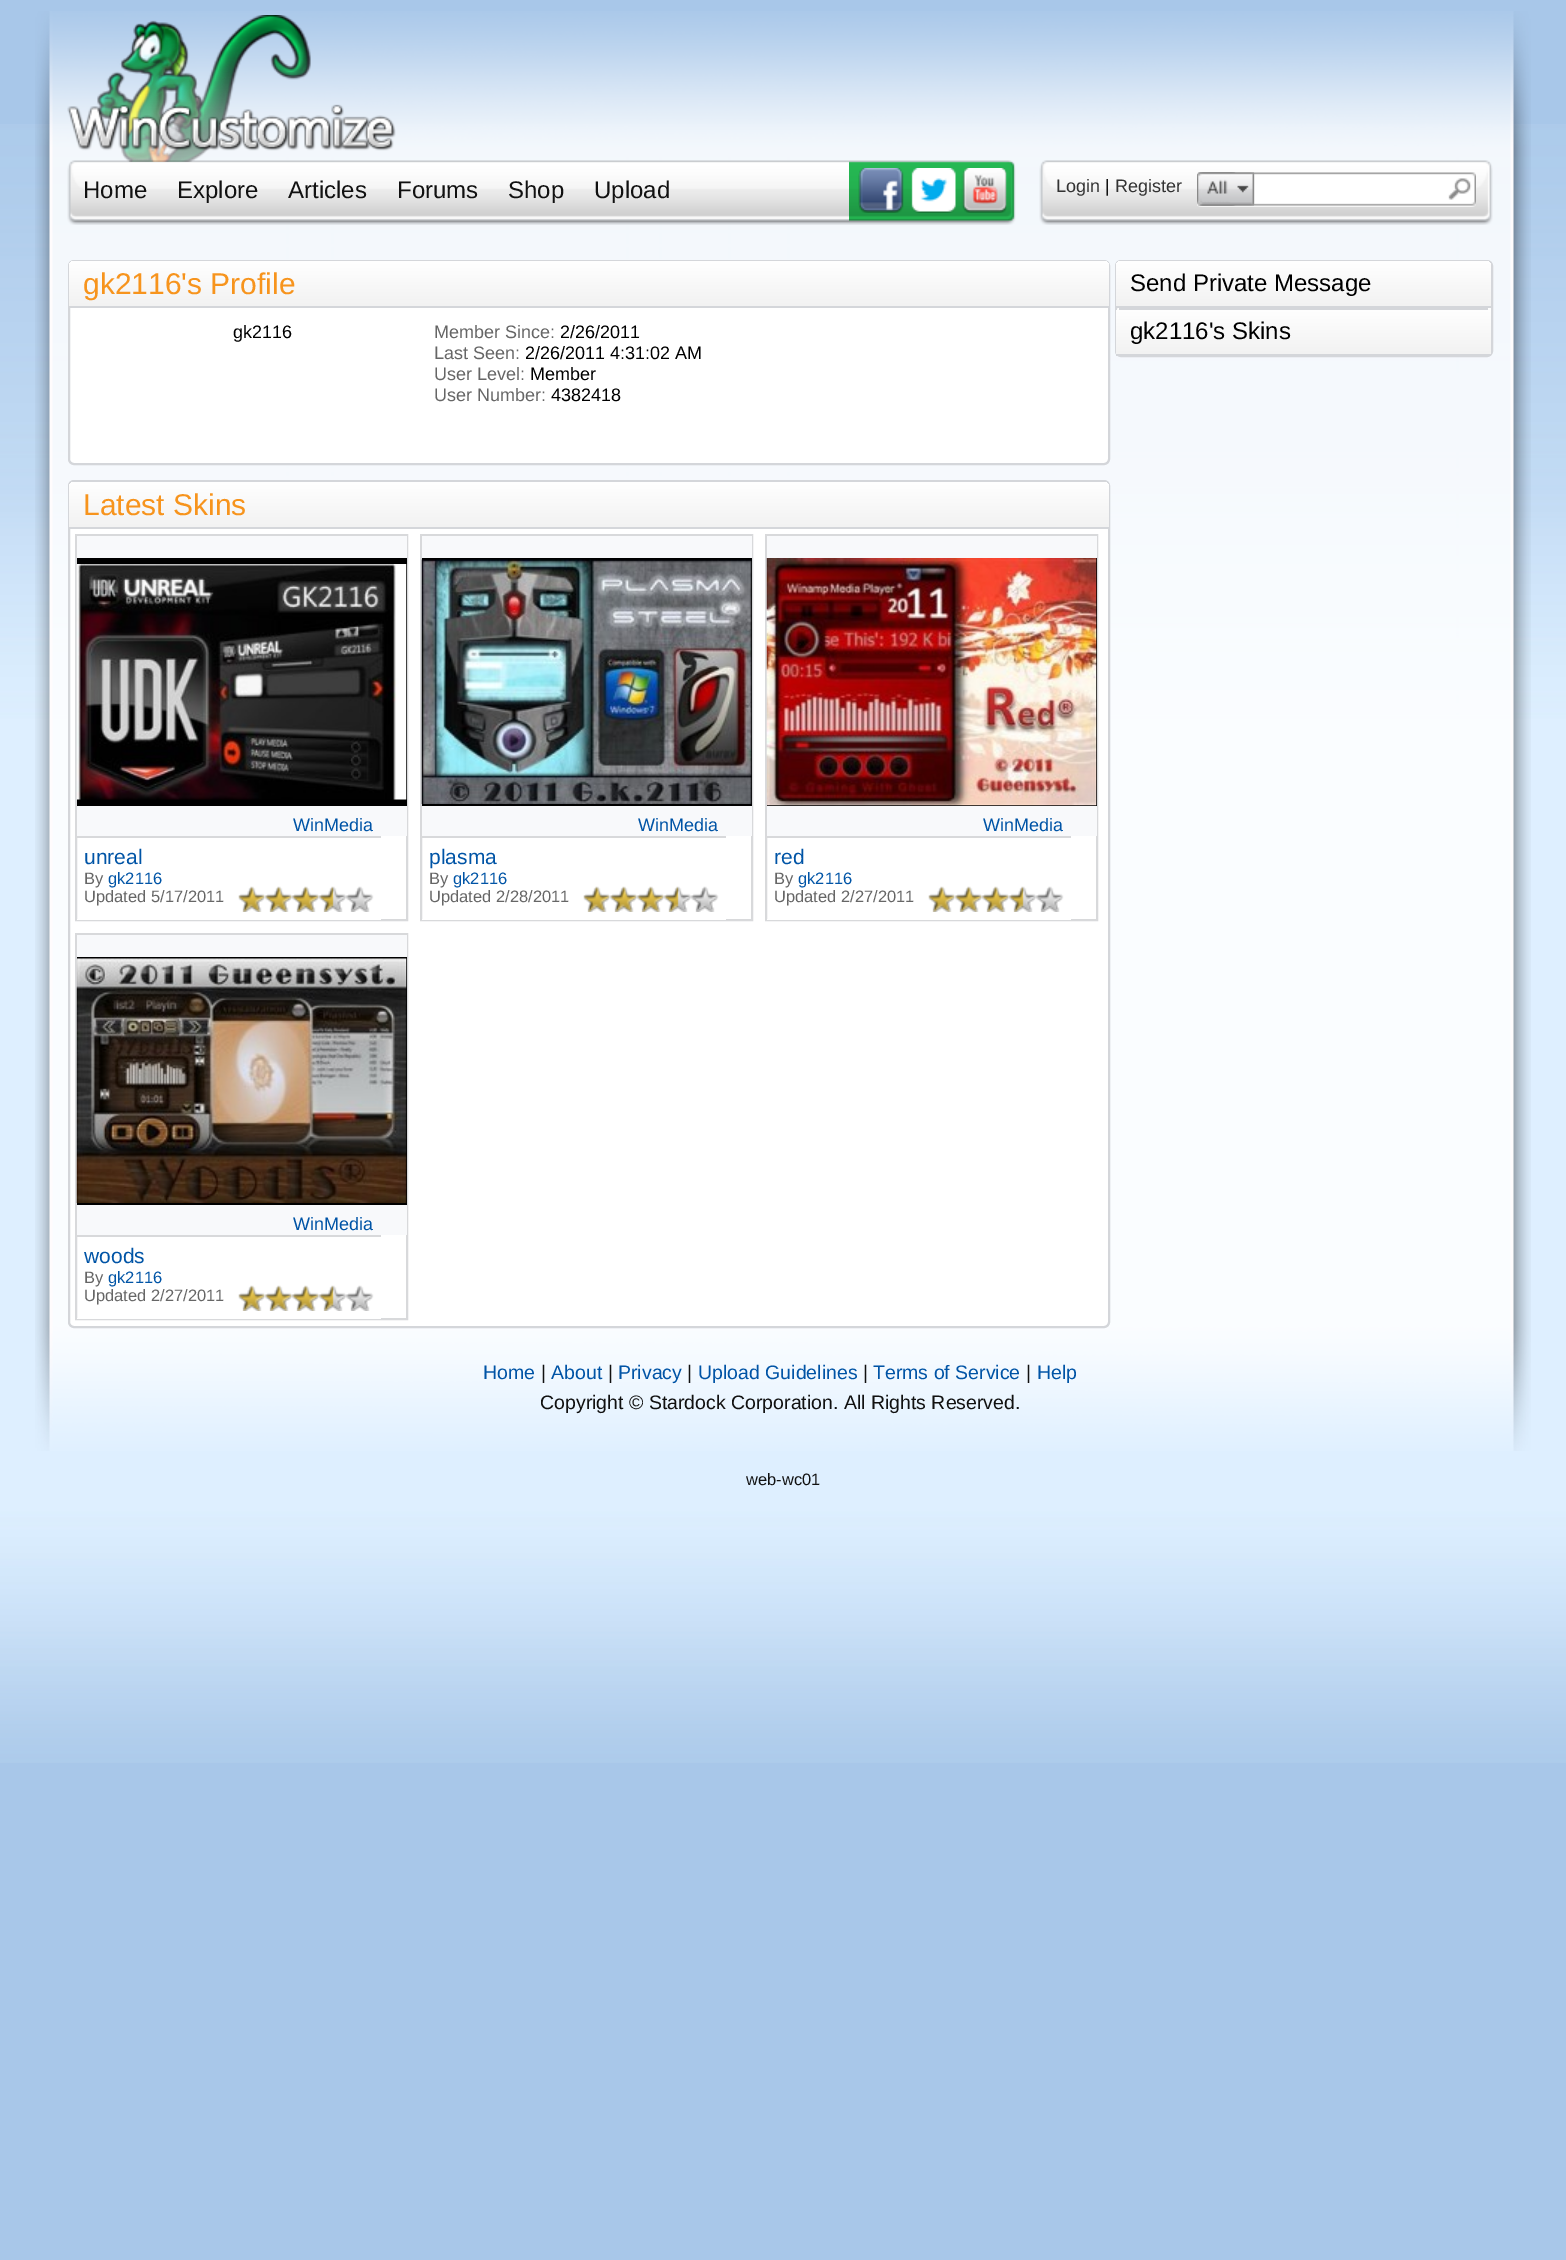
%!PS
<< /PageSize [1566 2260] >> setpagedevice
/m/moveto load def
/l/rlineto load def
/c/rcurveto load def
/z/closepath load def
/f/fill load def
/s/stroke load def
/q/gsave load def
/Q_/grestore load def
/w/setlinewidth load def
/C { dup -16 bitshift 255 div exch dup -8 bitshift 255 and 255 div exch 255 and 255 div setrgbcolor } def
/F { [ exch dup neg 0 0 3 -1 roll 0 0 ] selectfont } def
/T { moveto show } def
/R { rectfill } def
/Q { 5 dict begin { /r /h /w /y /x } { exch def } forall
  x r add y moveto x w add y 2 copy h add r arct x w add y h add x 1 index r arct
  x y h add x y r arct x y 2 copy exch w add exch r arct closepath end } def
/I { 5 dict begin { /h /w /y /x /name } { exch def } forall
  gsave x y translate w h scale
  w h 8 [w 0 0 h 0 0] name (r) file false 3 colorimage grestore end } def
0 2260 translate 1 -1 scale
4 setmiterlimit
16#A8C7E9 C
0 0 1566 2260 R
(1.rgb) 0 124 1566 1639 I
(2.rgb) 35 11 1496 136 I
(3.rgb) 35 147 1496 1173 I
(4.rgb) 67 15 329 147 I
(5.rgb) 67 160 17 65 I
(6.rgb) 84 160 765 65 I
(7.rgb) 849 160 167 65 I
/LiberationSans-Regular 24 F
16#111111 C
(Home) 83 198 T
(Explore) 177 198 T
(Articles) 288 198 T
(Forums) 397 198 T
(Shop) 508 198 T
(Upload) 594 198 T
(8.rgb) 858 168 149 45 I
(5.rgb) 1039 160 17 65 I
(9.rgb) 1056 160 417 65 I
(10.rgb) 1473 160 20 65 I
/LiberationSans-Regular 18 F
16#333333 C
(Login) 1056 192 T
16#111111 C
(|) 1105 192 T
16#333333 C
(Register) 1115 192 T
(11.rgb) 1197 172 279 35 I
(12.rgb) 1197 172 40 34 I
(13.rgb) 1197 172 40 34 I
(14.rgb) 1198 172 56 34 I
16#FFFFFF C
69 261 1040 203 5 Q q f Q_
16#D4D6DA C
2 w
s
q 75 261 m 1028 0 l 3.5 0 6 2.5 6 6 c 0 39 l -1040 0 l 0 -39 l 0 -3.5 2.5 -6 6 -6 c z clip newpath
<< /ShadingType 2 /ColorSpace /DeviceRGB /Coords [589 261 589 306] /Extend [true true] /Function << /FunctionType 2 /Domain [0 1] /C0 [1 1 1] /C1 [.949 .949 .949] /N 1 >> >> shfill Q_
69 306 1040 2 R
/LiberationSans-Regular 30 F
16#F7941D C
(gk2116's Profile) 83 294 T
/LiberationSans-Regular 18 F
16#000000 C
(gk2116) 233 338 T
16#666666 C
(Member Since:) 434 338 T
16#000000 C
(2/26/2011) 560 338 T
16#666666 C
(Last Seen:) 434 359 T
16#000000 C
(2/26/2011 4:31:02 AM) 525 359 T
16#666666 C
(User Level:) 434 380 T
16#000000 C
(Member) 530 380 T
16#666666 C
(User Number:) 434 401 T
16#000000 C
(4382418) 551 401 T
(21.rgb) 35 1320 1496 131 I
16#FFFFFF C
69 481 1040 846 5 Q q f Q_
16#D4D6DA C
s
q 75 482 m 1028 0 l 3.5 0 6 2.5 6 6 c 0 39 l -1040 0 l 0 -39 l 0 -3.5 2.5 -6 6 -6 c z clip newpath
<< /ShadingType 2 /ColorSpace /DeviceRGB /Coords [589 481 589 527] /Extend [true true] /Function << /FunctionType 2 /Domain [0 1] /C0 [1 1 1] /C1 [.949 .949 .949] /N 1 >> >> shfill Q_
69 527 1040 2 R
/LiberationSans-Regular 30 F
16#F7941D C
(Latest Skins) 83 515 T
16#D8D9DB C
76 535 331 385 rectstroke
16#F8F9FB C
77 536 330 300 R
16#000000 C
77 558 330 248 R
(15.rgb) 76 564 331 236 I
/LiberationSans-Regular 18 F
16#0054A6 C
(WinMedia) 293 831 T
16#FFFFFF C
77 919 304 1 R
16#D8D9DB C
77 836 304 2 R
/LiberationSans-Regular 21 F
16#0054A6 C
(unreal) 84 864 T
/LiberationSans-Regular 16.5 F
16#666666 C
(By) 84 884 T
16#0054A6 C
(gk2116) 108 884 T
16#666666 C
(Updated 5/17/2011) 84 902 T
(16.rgb) 238 886 136 26 I
16#D8D9DB C
421 535 331 385 rectstroke
16#F8F9FB C
422 536 330 300 R
16#000000 C
422 558 330 248 R
(17.rgb) 421 559 331 245 I
/LiberationSans-Regular 18 F
16#0054A6 C
(WinMedia) 638 831 T
16#FFFFFF C
422 919 304 1 R
16#D8D9DB C
422 836 304 2 R
/LiberationSans-Regular 21 F
16#0054A6 C
(plasma) 429 864 T
/LiberationSans-Regular 16.5 F
16#666666 C
(By) 429 884 T
16#0054A6 C
(gk2116) 453 884 T
16#666666 C
(Updated 2/28/2011) 429 902 T
(18.rgb) 583 886 136 26 I
16#D8D9DB C
766 535 331 385 rectstroke
16#F8F9FB C
767 536 330 300 R
16#000000 C
767 558 330 248 R
(19.rgb) 766 558 331 248 I
/LiberationSans-Regular 18 F
16#0054A6 C
(WinMedia) 983 831 T
16#FFFFFF C
767 919 304 1 R
16#D8D9DB C
767 836 304 2 R
/LiberationSans-Regular 21 F
16#0054A6 C
(red) 774 864 T
/LiberationSans-Regular 16.5 F
16#666666 C
(By) 774 884 T
16#0054A6 C
(gk2116) 798 884 T
16#666666 C
(Updated 2/27/2011) 774 902 T
(16.rgb) 928 886 136 26 I
16#D8D9DB C
76 934 331 385 rectstroke
16#F8F9FB C
77 935 330 300 R
16#000000 C
77 957 330 248 R
(20.rgb) 76 958 331 245 I
/LiberationSans-Regular 18 F
16#0054A6 C
(WinMedia) 293 1230 T
16#FFFFFF C
77 1318 304 1 R
16#D8D9DB C
77 1235 304 2 R
/LiberationSans-Regular 21 F
16#0054A6 C
(woods) 84 1263 T
/LiberationSans-Regular 16.5 F
16#666666 C
(By) 84 1283 T
16#0054A6 C
(gk2116) 108 1283 T
16#666666 C
(Updated 2/27/2011) 84 1301 T
(16.rgb) 238 1285 136 26 I
16#FFFFFF C
1116 261 376 95 5 Q q f Q_
16#D4D6DA C
s
q 1122 261 m 363 0 l 3.5 0 6 2.5 6 6 c 0 39 l -375 0 l 0 -39 l 0 -3.5 2.5 -6 6 -6 c z clip newpath
<< /ShadingType 2 /ColorSpace /DeviceRGB /Coords [1304 261 1304 306] /Extend [true true] /Function << /FunctionType 2 /Domain [0 1] /C0 [1 1 1] /C1 [.949 .949 .949] /N 1 >> >> shfill Q_
1116 306 375 2 R
/LiberationSans-Regular 24 F
16#000000 C
(Send Private Message) 1130 291 T
q
1122 308 m 363 0 l 3.5 0 6 2.5 6 6 c 0 42 l -375 0 l 0 -42 l 0 -3.5 2.5 -6 6 -6 c z clip newpath
q 1116 309 m 375 0 l 0 45 l -375 0 l z clip newpath
<< /ShadingType 2 /ColorSpace /DeviceRGB /Coords [1304 309 1304 354] /Extend [true true] /Function << /FunctionType 2 /Domain [0 1] /C0 [1 1 1] /C1 [.949 .949 .949] /N 1 >> >> shfill Q_
Q_
16#D4D6DA C
1119 308 369 2 R
1116 354 375 2 R
16#000000 C
(gk2116's Skins) 1130 339 T
/LiberationSans-Regular 19.5 F
16#0054A6 C
(Home) 483 1379 T
16#111111 C
(|) 541 1379 T
16#0054A6 C
(About) 551 1379 T
16#111111 C
(|) 608 1379 T
16#0054A6 C
(Privacy) 618 1379 T
16#111111 C
(|) 687 1379 T
16#0054A6 C
(Upload Guidelines) 698 1379 T
16#111111 C
(|) 863 1379 T
16#0054A6 C
(Terms of Service) 873 1379 T
16#111111 C
(|) 1026 1379 T
16#0054A6 C
(Help) 1037 1379 T
16#111111 C
(Copyright © Stardock Corporation. All Rights Reserved.) 540 1409 T
/LiberationSans-Regular 16.5 F
(web-wc01) 746 1485 T
showpage
